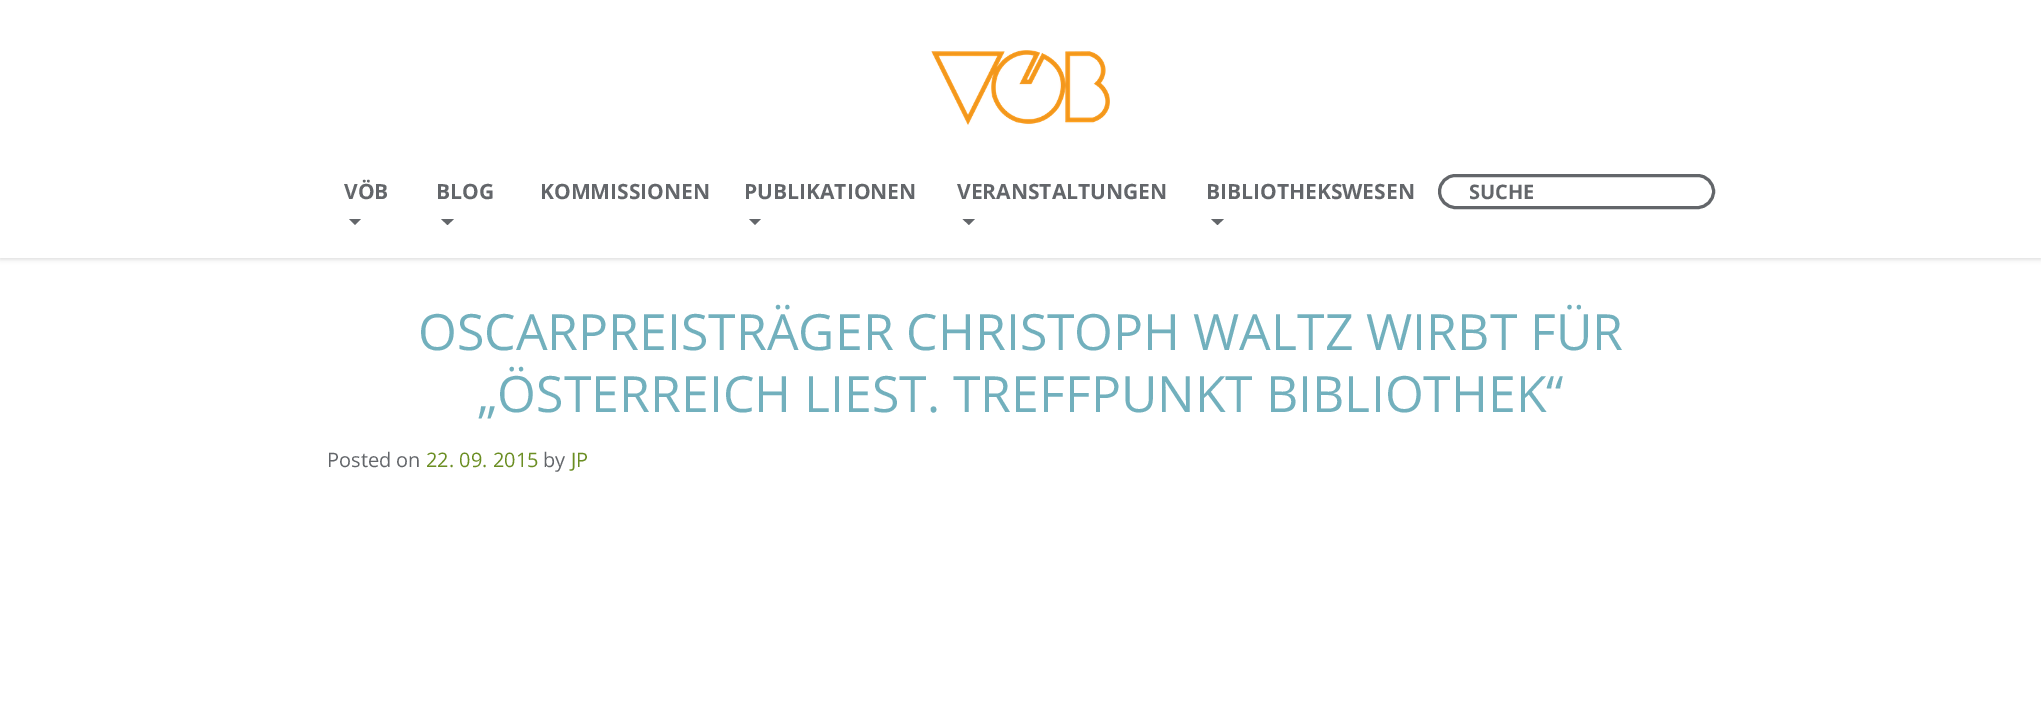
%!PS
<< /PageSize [2041 714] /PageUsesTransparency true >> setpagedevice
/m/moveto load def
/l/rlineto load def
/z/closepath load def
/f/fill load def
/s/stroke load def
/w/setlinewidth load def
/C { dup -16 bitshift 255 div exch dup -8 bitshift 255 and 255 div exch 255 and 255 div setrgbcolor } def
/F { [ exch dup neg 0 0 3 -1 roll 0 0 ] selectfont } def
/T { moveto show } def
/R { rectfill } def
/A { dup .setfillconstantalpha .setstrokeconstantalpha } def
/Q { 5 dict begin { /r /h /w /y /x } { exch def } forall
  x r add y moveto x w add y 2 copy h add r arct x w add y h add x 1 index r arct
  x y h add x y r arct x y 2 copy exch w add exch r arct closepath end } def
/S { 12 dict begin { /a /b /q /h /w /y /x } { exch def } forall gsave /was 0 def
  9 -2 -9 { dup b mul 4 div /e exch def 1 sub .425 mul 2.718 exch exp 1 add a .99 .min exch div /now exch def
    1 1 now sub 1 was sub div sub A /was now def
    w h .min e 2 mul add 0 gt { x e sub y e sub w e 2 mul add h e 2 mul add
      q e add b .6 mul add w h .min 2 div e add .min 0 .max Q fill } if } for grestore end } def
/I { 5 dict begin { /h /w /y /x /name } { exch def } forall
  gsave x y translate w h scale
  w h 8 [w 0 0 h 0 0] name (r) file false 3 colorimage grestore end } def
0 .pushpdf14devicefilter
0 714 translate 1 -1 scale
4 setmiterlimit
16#FFFFFF C
0 0 2041 714 R
16#000000 C
0 1 2041 258 0 2.5 .15 S
16#FFFFFF C
0 0 2041 258 R
(1.rgb) 931 50 179 75 I
/OpenSans-Bold 21 F
16#63666A C
(VÖB) 344 199 T
349 219 m 12 0 l -6 6 l z f
(BLOG) 436 199 T
441 219 m 13 0 l -6.5 6 l z f
(KOMMISSIONEN) 540 199 T
(PUBLIKATIONEN) 744 199 T
749 219 m 12 0 l -6 6 l z f
(VERANSTALTUNGEN) 957 199 T
962.5 219 m 12.5 0 l -6 6 l z f
(BIBLIOTHEKSWESEN) 1206 199 T
1211 219 m 13 0 l -6.5 6 l z f
3 w
1439.5 175.5 274 32 16 Q s
/OpenSans-Bold 20 F
(SUCHE) 1469 199 T
/OpenSans-Regular 50 F
16#72B0BD C
(OSCARPREISTRÄGER CHRISTOPH WALTZ WIRBT FÜR) 418 350 T
(„ÖSTERREICH LIEST. TREFFPUNKT BIBLIOTHEK“) 477 412 T
/OpenSans-Regular 20 F
16#63666A C
(Posted on) 327 467 T
16#6B8E23 C
(22. 09. 2015) 426 467 T
16#63666A C
(by) 543 467 T
16#6B8E23 C
(JP) 571 467 T
.poppdf14devicefilter showpage
